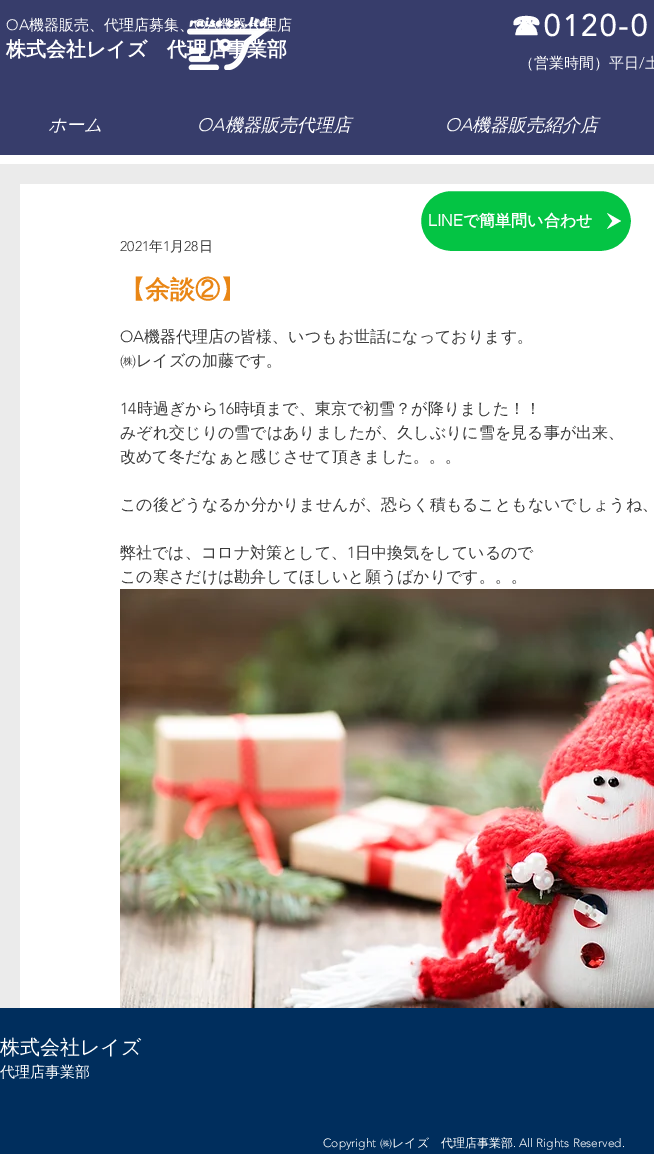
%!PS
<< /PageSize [654 1154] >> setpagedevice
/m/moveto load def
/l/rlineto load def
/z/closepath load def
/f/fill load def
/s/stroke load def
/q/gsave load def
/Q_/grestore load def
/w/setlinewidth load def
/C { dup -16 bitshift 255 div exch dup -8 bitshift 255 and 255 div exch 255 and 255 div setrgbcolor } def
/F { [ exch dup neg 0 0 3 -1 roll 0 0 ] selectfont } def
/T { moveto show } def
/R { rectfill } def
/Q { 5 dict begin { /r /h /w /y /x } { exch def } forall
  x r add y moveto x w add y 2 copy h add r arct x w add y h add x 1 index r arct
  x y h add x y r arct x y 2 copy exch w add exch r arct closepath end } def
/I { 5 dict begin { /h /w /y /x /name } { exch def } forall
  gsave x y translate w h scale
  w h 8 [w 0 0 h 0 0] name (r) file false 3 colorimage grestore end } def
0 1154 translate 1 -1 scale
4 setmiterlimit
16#FFFFFF C
0 0 654 1154 R
16#373D6B C
0 0 654 155 R
/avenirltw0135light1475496-Light 15 F
16#FFFFFF C
(OA) 6 30 T
/WenQuanYiZenHei-Medium 15 F
(機器販売、代理店募集、) 29 30 T
(1.rgb) 187 17 84 53 I
/avenirltw0135light1475496-Light 15 F
(OA) 194 30 T
/WenQuanYiZenHei-Medium 15 F
(機器代理店) 217 30 T
/WenQuanYiZenHei-Bold 30 F
511 36 m 3 0 (☎) ashow
/avenirltw0135light1475496-Bold 30 F
544 36 m 3 0 (0120-0) ashow
/WenQuanYiZenHei-Medium 15 F
(（営業時間）平日) 519 68 T
/avenirltw0135light1475496-Light 15 F
(/) 639 68 T
/WenQuanYiZenHei-Medium 15 F
(土) 645 68 T
/WenQuanYiZenHei-Bold 20 F
(株式会社レイズ　代理店事業部) 6 56 T
/WenQuanYiZenHei-MediumItalic 18 F
(ホーム) 48 131 T
/avenirltw0135light1475496-LightItalic 18 F
(OA) 197 131 T
/WenQuanYiZenHei-MediumItalic 18 F
(機器販売代理店) 225 131 T
/avenirltw0135light1475496-LightItalic 18 F
(OA) 445 131 T
/WenQuanYiZenHei-MediumItalic 18 F
(機器販売紹介店) 472 131 T
16#EBEBEB C
0 164 654 844 R
16#FFFFFF C
20 184 634 824 R
16#04C444 C
419.5 189.5 213 63 31.5 Q q f Q_
16#FFFFFF C
3 w
s
/helvetica-Bold 16 F
(LINE) 428 226 T
/WenQuanYiZenHei-Bold 16 F
(で簡単問い合わせ) 463 226 T
607 213 m 14 8 l -14 8 l 5.5 -8 l z f
/avenirltw0135light1475496-Light 14 F
16#393939 C
(2021) 120 251 T
/WenQuanYiZenHei-Medium 14 F
(年) 149 251 T
/avenirltw0135light1475496-Light 14 F
(1) 163 251 T
/WenQuanYiZenHei-Medium 14 F
(月) 170 251 T
/avenirltw0135light1475496-Light 14 F
(28) 184 251 T
/WenQuanYiZenHei-Medium 14 F
(日) 199 251 T
/WenQuanYiZenHei-Bold 25 F
16#E98615 C
(【余談②】) 120 298 T
/avenirltw0135light1475496-Light 16 F
16#393939 C
(OA) 120 342 T
/WenQuanYiZenHei-Medium 16 F
(機器代理店の皆様、いつもお世話になっております。) 144 342 T
(㈱レイズの加藤です。) 120 366 T
/avenirltw0135light1475496-Light 16 F
(14) 120 414 T
/WenQuanYiZenHei-Medium 16 F
(時過ぎから) 137 414 T
/avenirltw0135light1475496-Light 16 F
(16) 218 414 T
/WenQuanYiZenHei-Medium 16 F
(時頃まで、東京で初雪？が降りました！！) 234 414 T
(みぞれ交じりの雪ではありましたが、久しぶりに雪を見る事が出来、) 120 438 T
(改めて冬だなぁと感じさせて頂きました。。。) 120 462 T
(この後どうなるか分かりませんが、恐らく積もることもないでしょうね、) 120 510 T
(弊社では、コロナ対策として、) 120 558 T
/avenirltw0135light1475496-Light 16 F
(1) 347 558 T
/WenQuanYiZenHei-Medium 16 F
(日中換気をしているので) 355 558 T
(この寒さだけは勘弁してほしいと願うばかりです。。。) 120 582 T
(2.rgb) 120 589 534 419 I
16#002E5D C
0 1008 654 146 R
/WenQuanYiZenHei-Medium 20 F
16#FFFFFF C
(株式会社レイズ) 0 1054 T
/WenQuanYiZenHei-Medium 15 F
(代理店事業部) 0 1077 T
/avenirltw0135light1475496-Light 12 F
(Copyright) 323 1147 T
/WenQuanYiZenHei-Medium 12 F
(㈱レイズ　代理店事業部) 380 1147 T
/avenirltw0135light1475496-Light 12 F
(. All Rights Reserved.) 513 1147 T
showpage
